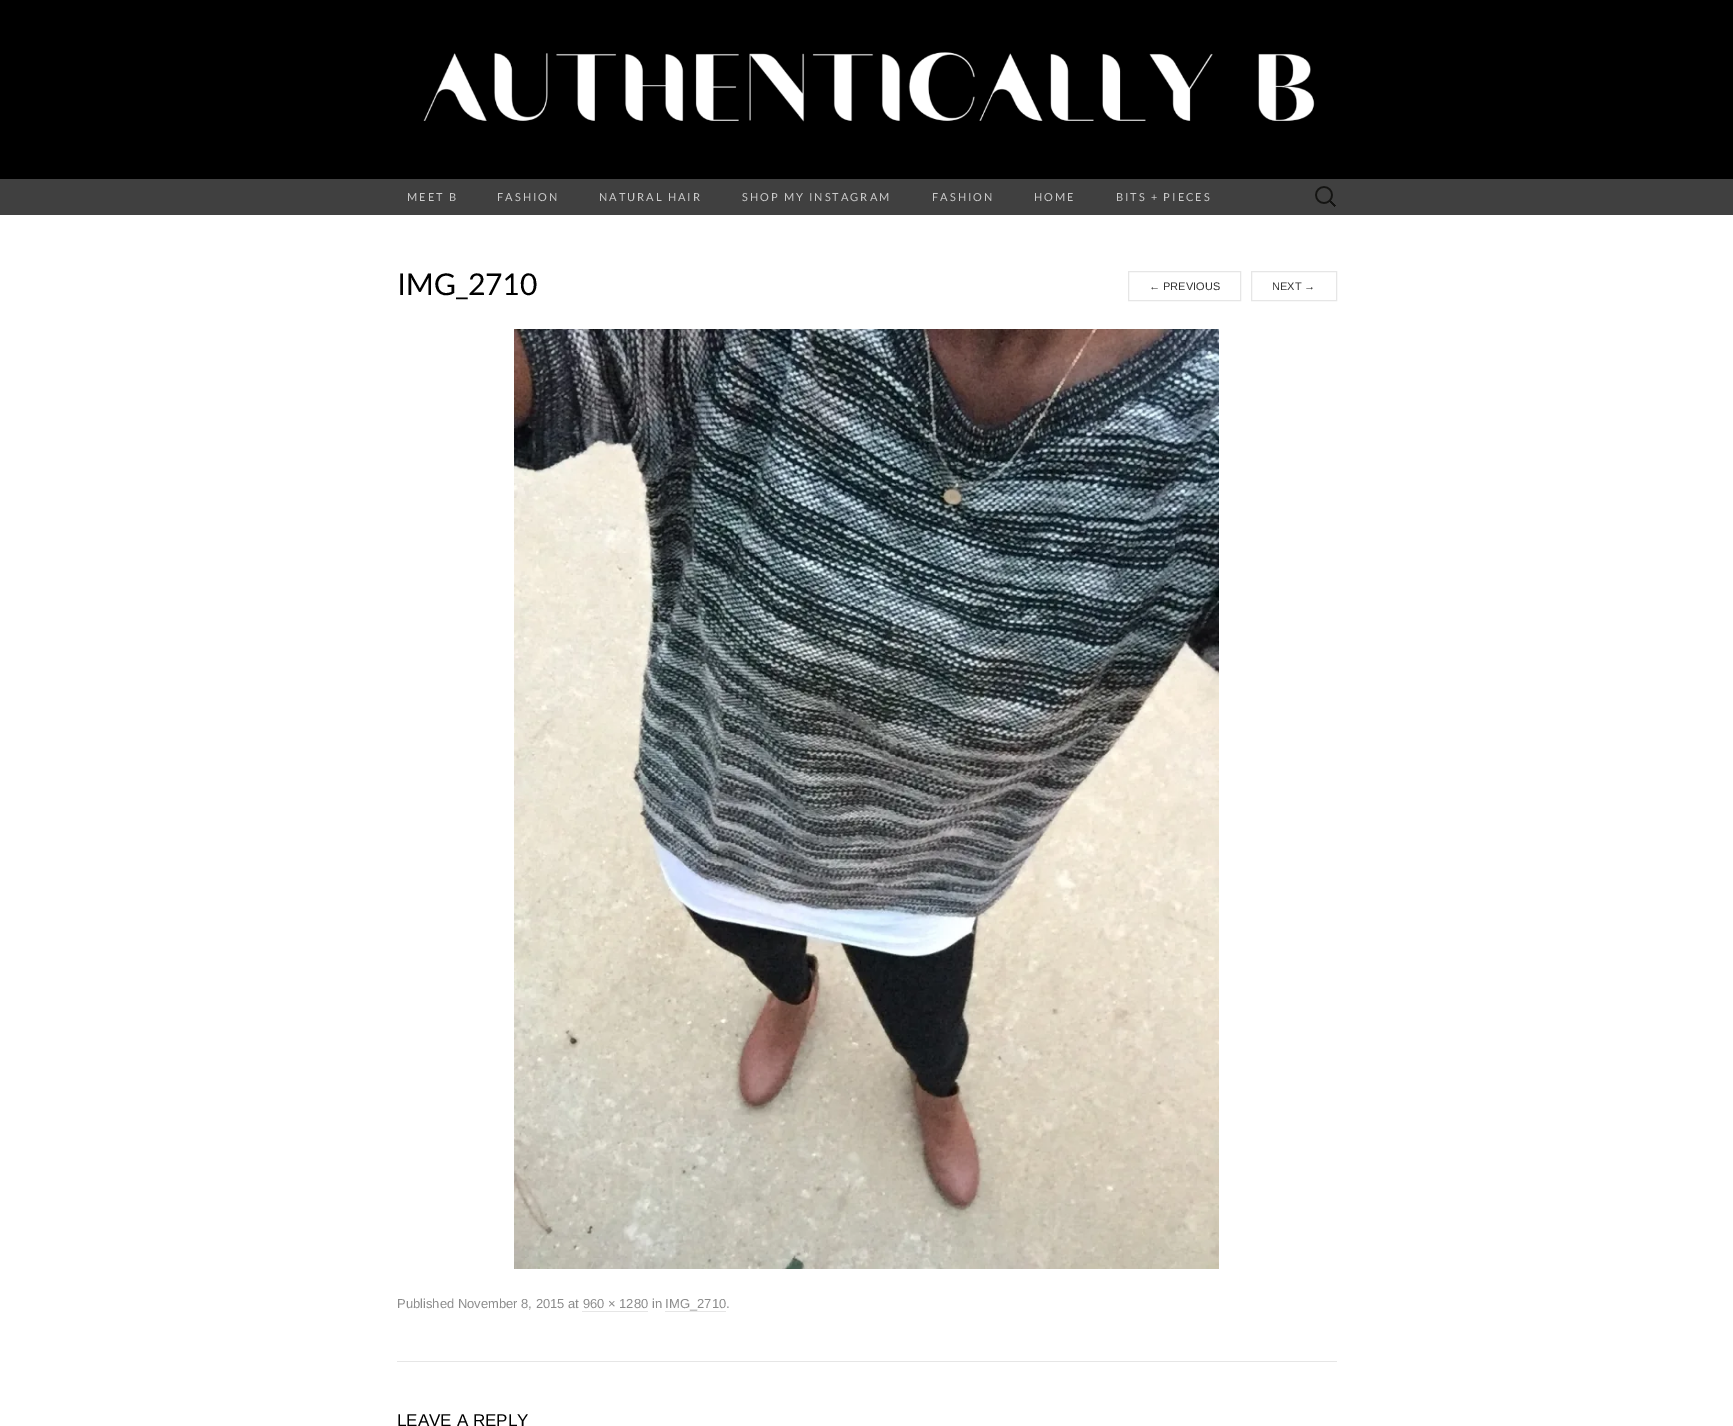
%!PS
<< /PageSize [1733 1426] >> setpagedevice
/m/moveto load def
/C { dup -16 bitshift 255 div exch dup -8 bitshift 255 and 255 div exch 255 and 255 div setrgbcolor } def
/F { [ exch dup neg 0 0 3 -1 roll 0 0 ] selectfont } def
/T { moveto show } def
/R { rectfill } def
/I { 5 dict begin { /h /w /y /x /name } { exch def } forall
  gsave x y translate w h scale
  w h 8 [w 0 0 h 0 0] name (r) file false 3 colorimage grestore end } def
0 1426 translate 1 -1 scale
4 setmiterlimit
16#FFFFFF C
0 0 1733 1426 R
16#000000 C
0 0 1733 179 R
(1.rgb) 423 52 892 70 I
16#404040 C
0 179 1733 36 R
/Lato-Regular 11 F
16#CCCCCC C
407 201 m 2 0 (MEET B) ashow
497 201 m 2 0 (FASHION) ashow
599 201 m 2 0 (NATURAL HAIR) ashow
742 201 m 2 0 (SHOP MY INSTAGRAM) ashow
932 201 m 2 0 (FASHION) ashow
1034 201 m 2 0 (HOME) ashow
1116 201 m 2 0 (BITS + PIECES) ashow
(2.rgb) 1315 186 21 21 I
16#E6E6E6 C
397 1361 940 1 R
/Lato-Regular 30 F
16#000000 C
(IMG_2710) 397 295 T
16#E6E6E6 C
1128.5 271.5 112 29 rectstroke
/LiberationSans-Regular 11 F
16#333333 C
(← PREVIOUS) 1149 290 T
16#E6E6E6 C
1251.5 271.5 85 29 rectstroke
16#333333 C
(NEXT →) 1272 290 T
(3.rgb) 514 329 705 940 I
/LiberationSans-Regular 13 F
16#8C8C8C C
(Published November 8, 2015 at 960 × 1280 in IMG_2710.) 397 1308 T
16#E6E6E6 C
582 1311 66 1 R
665 1311 61 1 R
/LiberationSans-Regular 17 F
16#000000 C
(LEAVE A REPLY) 397 1426 T
showpage
